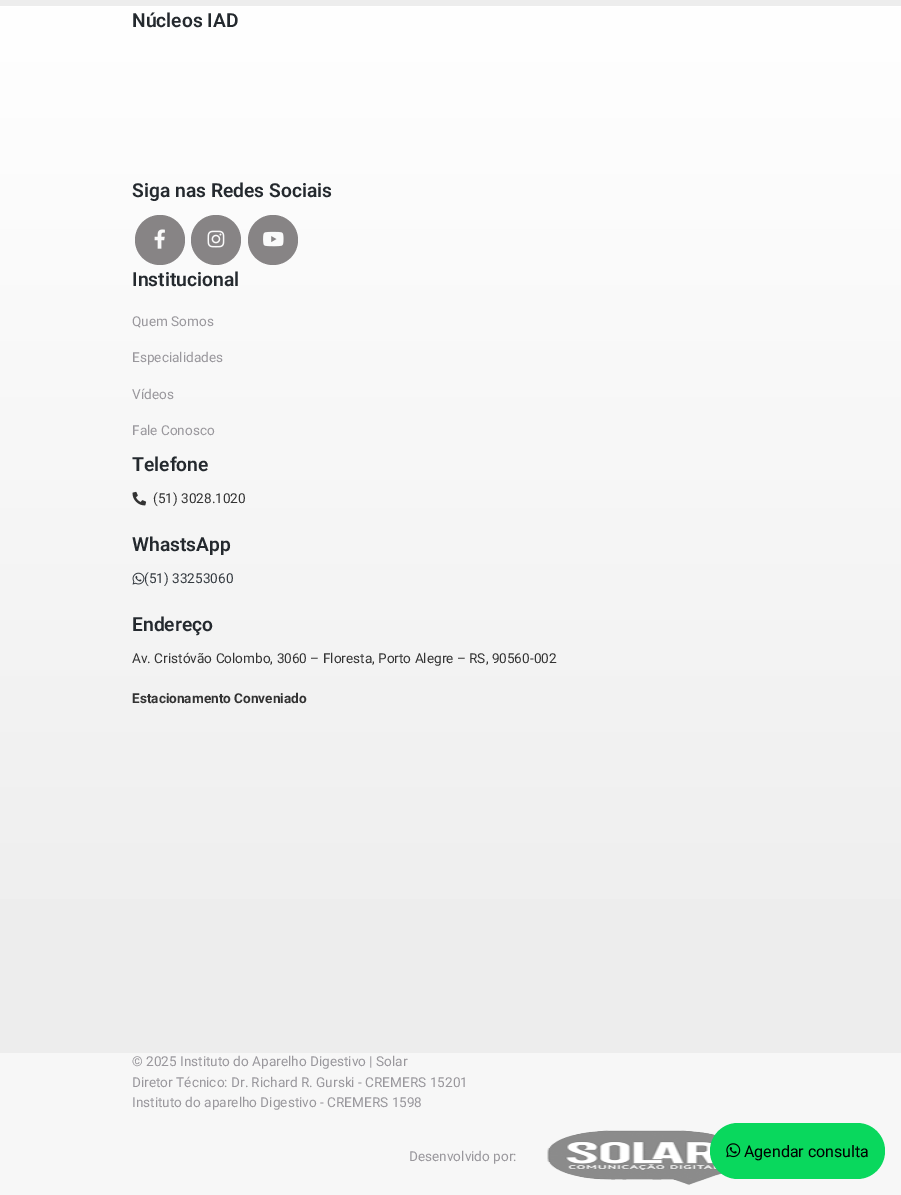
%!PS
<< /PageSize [901 1195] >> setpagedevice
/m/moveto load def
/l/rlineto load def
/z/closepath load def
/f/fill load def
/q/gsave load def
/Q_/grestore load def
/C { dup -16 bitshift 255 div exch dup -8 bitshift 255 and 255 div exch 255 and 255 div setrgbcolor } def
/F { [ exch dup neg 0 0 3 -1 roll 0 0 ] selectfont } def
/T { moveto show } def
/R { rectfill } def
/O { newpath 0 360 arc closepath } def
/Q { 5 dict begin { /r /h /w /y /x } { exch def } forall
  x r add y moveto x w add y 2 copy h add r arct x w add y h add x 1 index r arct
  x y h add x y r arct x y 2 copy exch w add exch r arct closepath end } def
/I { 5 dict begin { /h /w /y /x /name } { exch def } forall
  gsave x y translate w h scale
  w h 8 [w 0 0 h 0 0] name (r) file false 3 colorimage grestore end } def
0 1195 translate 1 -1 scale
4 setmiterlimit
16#EDEDED C
0 0 901 1195 R
16#F7F7F7 C
0 1053 901 142 R
q 0 6 m 901 0 l 0 893 l -901 0 l z clip newpath
<< /ShadingType 2 /ColorSpace /DeviceRGB /Coords [451 6.2 451 1053] /Extend [true true] /Function << /FunctionType 3 /Domain [0 1] /Functions [<< /FunctionType 2 /Domain [0 1] /C0 [1 1 1] /C1 [.965 .965 .965] /N 1 >> << /FunctionType 2 /Domain [0 1] /C0 [.965 .965 .965] /C1 [.929 .929 .929] /N 1 >>] /Bounds [.47] /Encode [0 1 0 1] >> >> shfill Q_
/Roboto-SemiBold 19.25 F
16#24292E C
(Núcleos IAD) 132 27 T
(Siga nas Redes Sociais) 132 197 T
16#878485 C
160 240 25 O f
(1.rgb) 154 229 11 20 I
216 240 25 O f
(2.rgb) 207 230 18 18 I
273 240 25 O f
(3.rgb) 263 231 21 16 I
16#24292E C
(Institucional) 132 286 T
/Roboto-Regular 13.6 F
16#99979C C
(Quem Somos) 132 326 T
(Especialidades) 132 362 T
(Vídeos) 132 399 T
(Fale Conosco) 132 435 T
/Roboto-SemiBold 19.25 F
16#24292E C
(Telefone) 132 471 T
(4.rgb) 132 491 15 15 I
/Roboto-Regular 13.6 F
16#333333 C
(\(51\) 3028.1020) 153 503 T
/Roboto-SemiBold 19.25 F
16#24292E C
(WhastsApp) 132 551 T
(5.rgb) 132 572 13 13 I
/Roboto-Regular 13.6 F
16#343A40 C
(\(51\) 33253060) 144 583 T
/Roboto-SemiBold 19.25 F
16#24292E C
(Endereço) 132 631 T
/Roboto-Regular 13.6 F
16#333333 C
(Av. Cristóvão Colombo, 3060 – Floresta, Porto Alegre – RS, 90560-002) 132 663 T
/Roboto-Bold 13.6 F
(Estacionamento Conveniado) 132 703 T
/Roboto-Regular 13.6 F
16#99979C C
(© 2025 Instituto do Aparelho Digestivo | Solar) 132 1066 T
(Diretor Técnico: Dr. Richard R. Gurski - CREMERS 15201) 132 1087 T
(Instituto do aparelho Digestivo - CREMERS 1598) 132 1107 T
(Desenvolvido por:) 409 1161 T
(6.rgb) 547 1130 175 55 I
16#09D85D C
710 1123 175 56 28 Q f
(7.rgb) 726 1143 15 15 I
/Roboto-Regular 16 F
16#000000 C
(Agendar consulta) 744 1157 T
showpage
